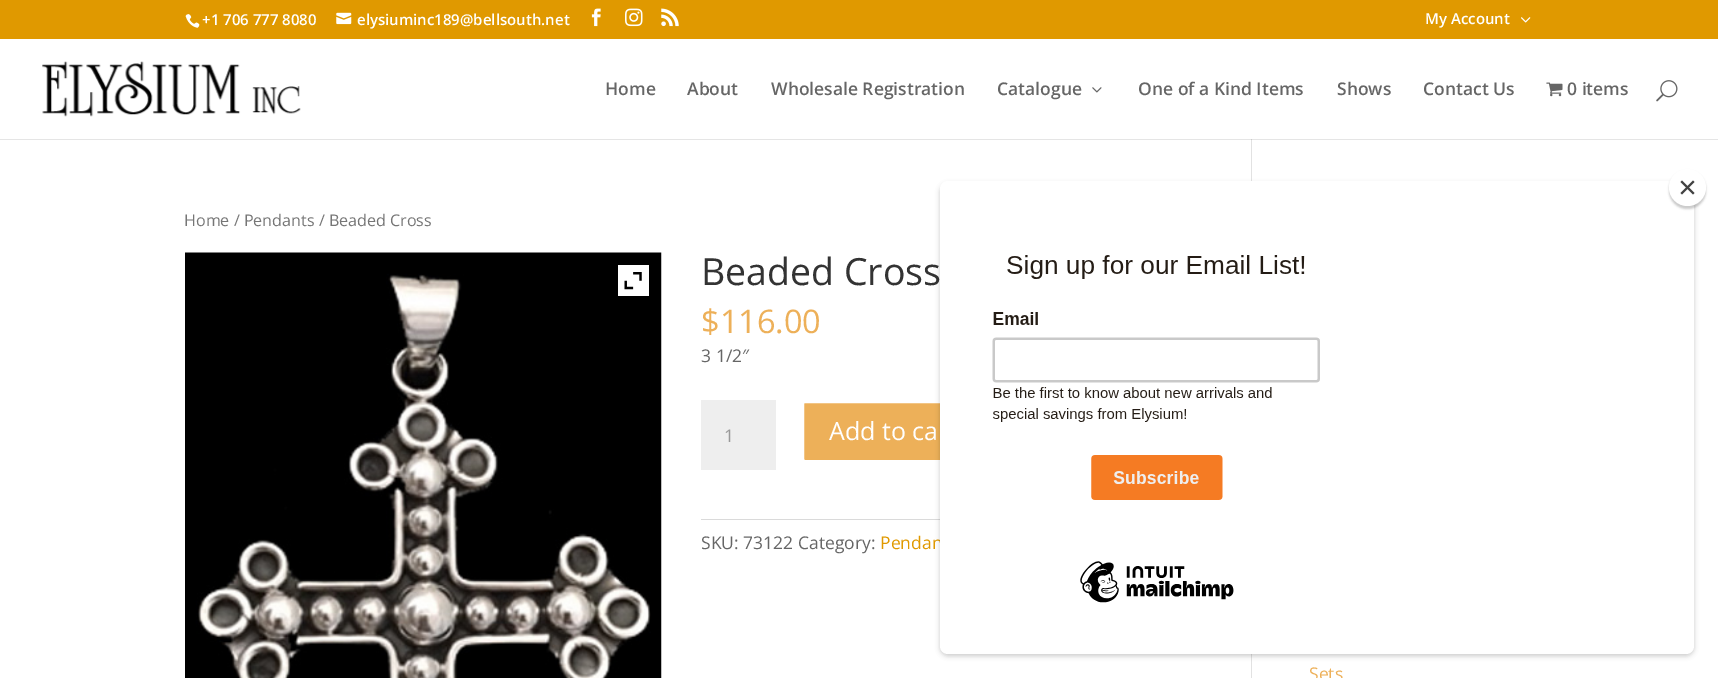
%!PS
<< /PageSize [1718 678] /PageUsesTransparency true >> setpagedevice
/m/moveto load def
/l/rlineto load def
/z/closepath load def
/f/fill load def
/s/stroke load def
/q/gsave load def
/Q_/grestore load def
/w/setlinewidth load def
/C { dup -16 bitshift 255 div exch dup -8 bitshift 255 and 255 div exch 255 and 255 div setrgbcolor } def
/F { [ exch dup neg 0 0 3 -1 roll 0 0 ] selectfont } def
/T { moveto show } def
/R { rectfill } def
/A { dup .setfillconstantalpha .setstrokeconstantalpha } def
/O { newpath 0 360 arc closepath } def
/Q { 5 dict begin { /r /h /w /y /x } { exch def } forall
  x r add y moveto x w add y 2 copy h add r arct x w add y h add x 1 index r arct
  x y h add x y r arct x y 2 copy exch w add exch r arct closepath end } def
/S { 12 dict begin { /a /b /q /h /w /y /x } { exch def } forall gsave /was 0 def
  9 -2 -9 { dup b mul 4 div /e exch def 1 sub .425 mul 2.718 exch exp 1 add a .99 .min exch div /now exch def
    1 1 now sub 1 was sub div sub A /was now def
    w h .min e 2 mul add 0 gt { x e sub y e sub w e 2 mul add h e 2 mul add
      q e add b .6 mul add w h .min 2 div e add .min 0 .max Q fill } if } for grestore end } def
/I { 5 dict begin { /h /w /y /x /name } { exch def } forall
  gsave x y translate w h scale
  w h 8 [w 0 0 h 0 0] name (r) file false 3 colorimage grestore end } def
0 .pushpdf14devicefilter
0 678 translate 1 -1 scale
4 setmiterlimit
16#FFFFFF C
0 0 1718 678 R
16#E09900 C
0 0 1718 39 R
(1.rgb) 185 14 15 14 I
/OpenSans-SemiBold 15 F
16#FFFFFF C
(+1 706 777 8080) 202 25 T
(2.rgb) 336 12 16 13 I
(elysiuminc189@bellsouth.net) 357 25 T
(3.rgb) 591 8 10 19 I
(4.rgb) 625 8 18 19 I
(5.rgb) 661 8 18 19 I
(My Account) 1425 24 T
(6.rgb) 1521 17 10 6 I
16#E2E2E2 C
1251 134 1 544 R
0.1 A
16#000000 C
0 139 m 0 1 l 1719 0 l 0 -100 l 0 99 l z f
1 A
16#FFFFFF C
1251 134 1 5 R
(7.rgb) 42 61 259 56 I
/OpenSans-SemiBold 17.5 F
16#666666 C
(Home) 605 95 T
(About) 687 95 T
(Wholesale Registration) 771 95 T
(Catalogue) 997 95 T
(8.rgb) 1092 87 10 6 I
(One of a Kind Items) 1138 95 T
(Shows) 1337 95 T
(Contact Us) 1423 95 T
(9.rgb) 1546 82 17 15 I
(0 items) 1567 95 T
(10.rgb) 1656 80 22 22 I
/OpenSans-Regular 16.1 F
16#767676 C
(Home / Pendants / Beaded Cross) 184 226 T
(11.rgb) 185 252 477 426 I
16#FFFFFF C
618 265 31 31 R
(12.rgb) 624 272 18 18 I
/OpenSans-Regular 37.5 F
16#333333 C
(Beaded Cross) 701 285 T
/OpenSans-Regular 32.5 F
16#EDB059 C
($116.00) 701 333 T
/OpenSans-Regular 17.5 F
16#666666 C
(3 1/2″) 701 362 T
16#EEEEEE C
701 400 75 70 R
16#999999 C
(1) 724 442 T
16#EDB059 C
802.5 401.5 181 60 2.5 Q q f Q_
16#FFFFFF C
3 w
s
/OpenSans-Regular 25 F
(Add to ca) 829 440 T
16#DADADA C
701 519 239 1 R
/OpenSans-Regular 17.5 F
16#666666 C
(SKU: 73122 Category:) 701 549 T
16#E09900 C
(Pendan) 880 549 T
16#EDB059 C
(Sets) 1309 680 T
16#000000 C
940 184 754 472 8 2.5 .2 S
16#FFFFFF C
940 181 754 473 8 Q f
16#000000 C
1669 171 37 38 18.5 1 .2 S
16#FFFFFF C
1687.5 187.5 18.5 O f
16#414141 C
1693 180.5 m 1.5 1.5 l -12.5 12.5 l -1.5 -1.5 l z f
1680.5 182 m 1.5 -1.5 l 12.5 12.5 l -1.5 1.5 l z f
(13.rgb) 992 255 328 348 I
.poppdf14devicefilter showpage
